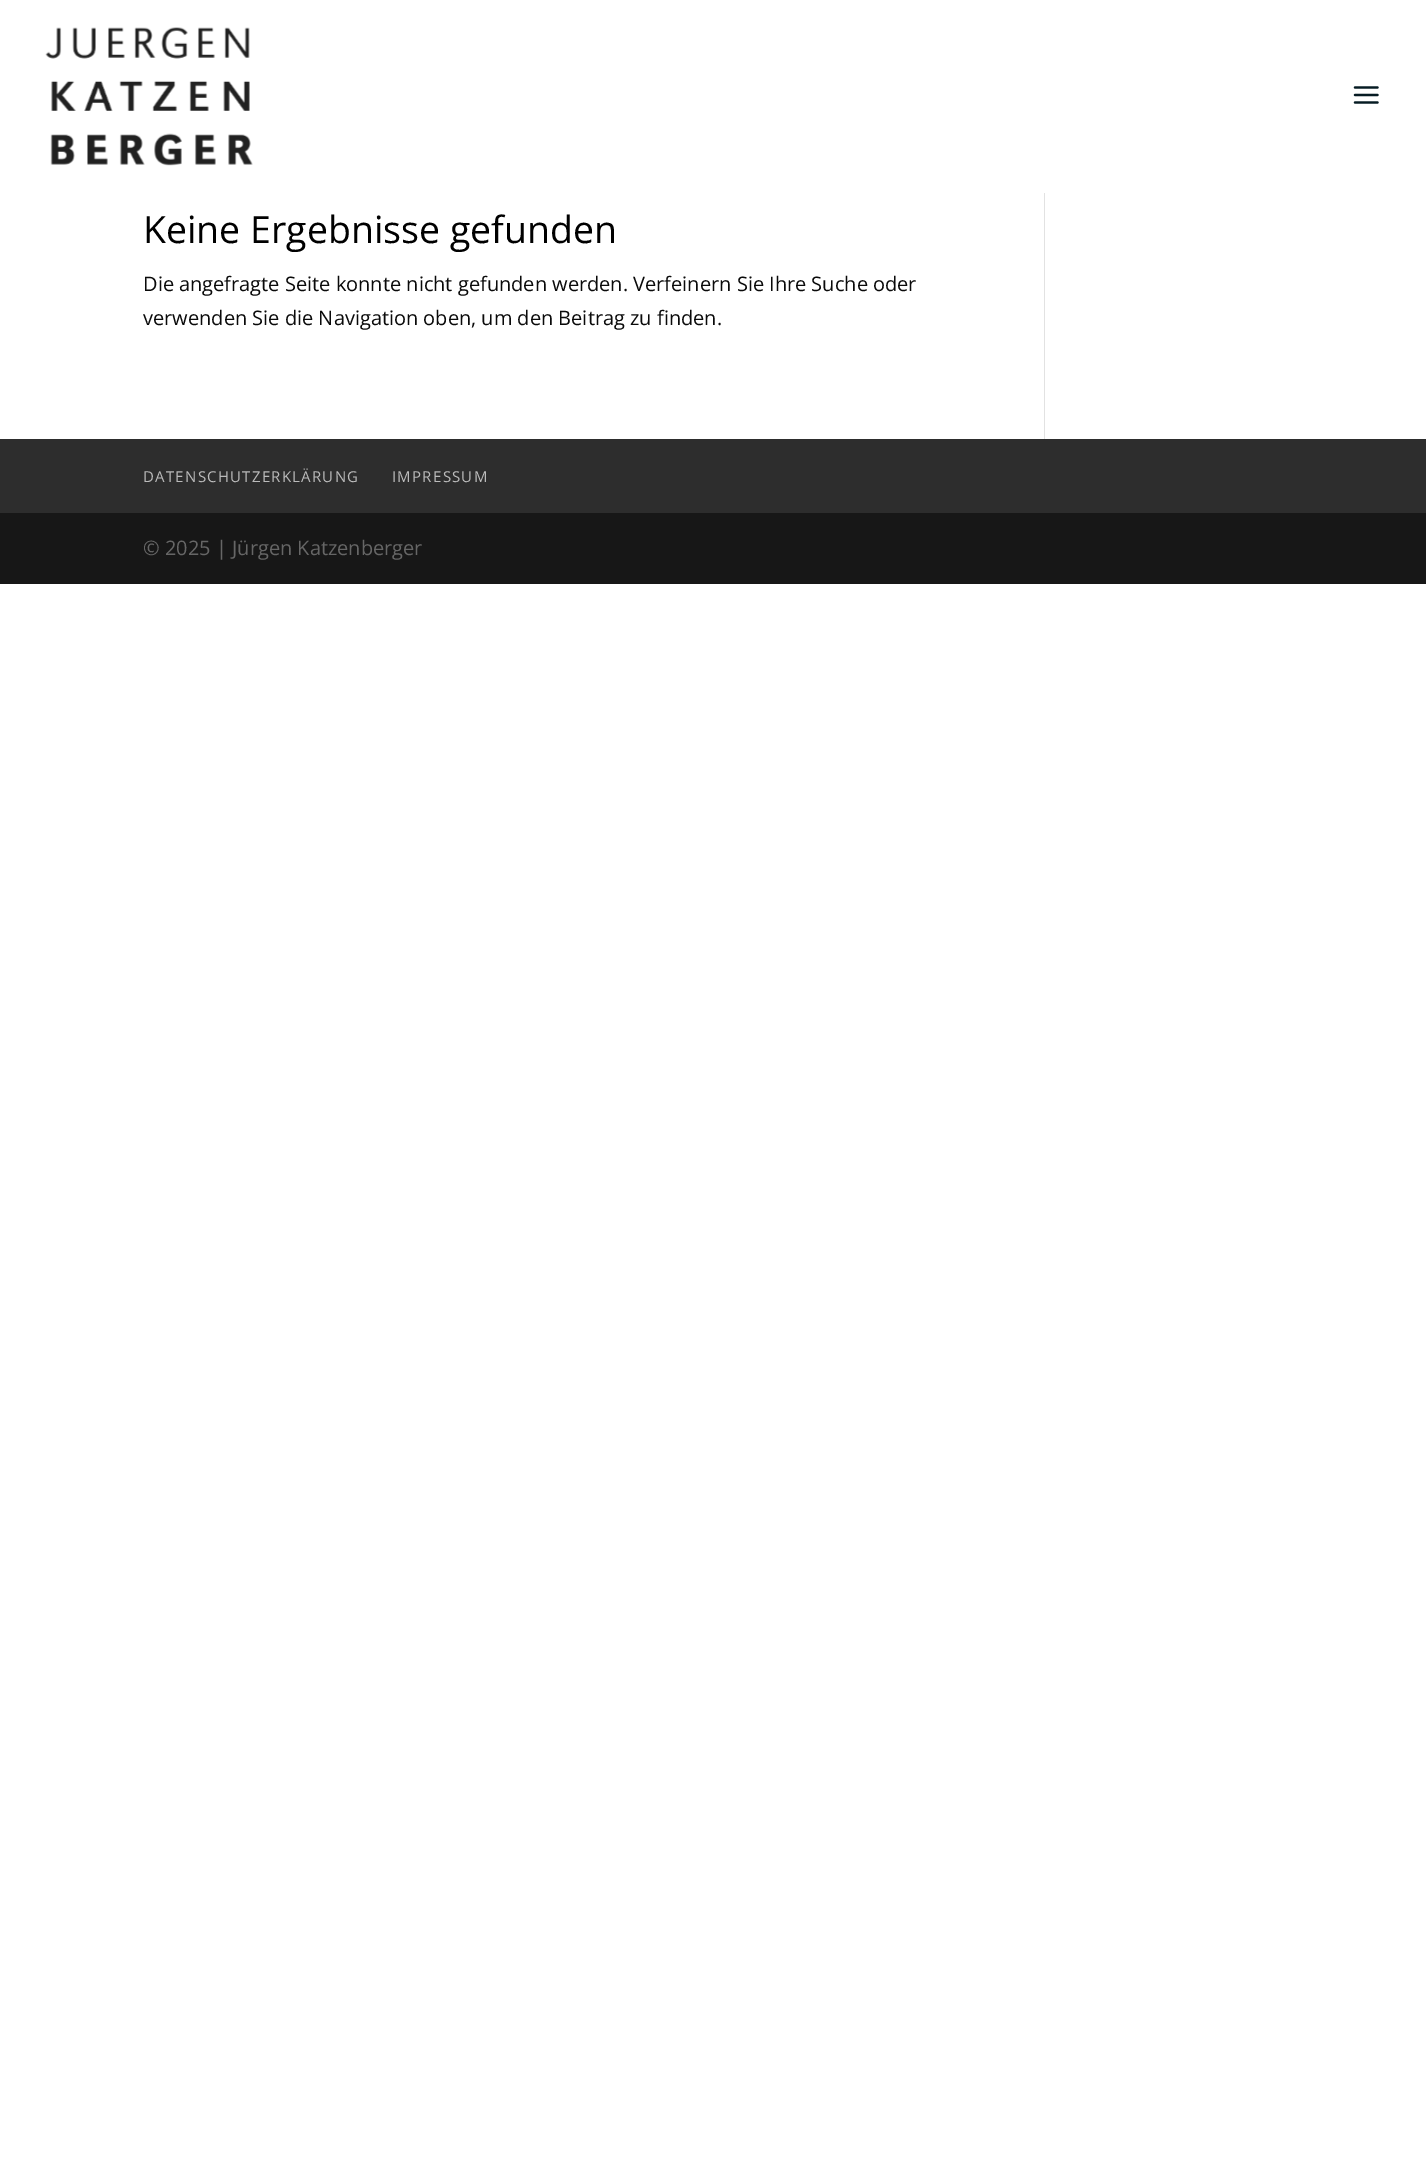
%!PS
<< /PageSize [1426 2165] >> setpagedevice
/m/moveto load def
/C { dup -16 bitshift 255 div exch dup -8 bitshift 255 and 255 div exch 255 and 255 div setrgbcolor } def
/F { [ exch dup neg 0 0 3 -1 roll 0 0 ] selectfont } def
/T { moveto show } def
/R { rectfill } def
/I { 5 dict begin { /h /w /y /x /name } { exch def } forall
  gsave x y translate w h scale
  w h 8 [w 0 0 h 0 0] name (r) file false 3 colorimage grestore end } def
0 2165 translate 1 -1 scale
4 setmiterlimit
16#FFFFFF C
0 0 1426 2165 R
(1.rgb) 45 27 208 139 I
(2.rgb) 1353 86 26 18 I
/OpenSans-Regular 37.5 F
16#000000 C
(Keine Ergebnisse gefunden) 143 243 T
/OpenSans-Regular 20 F
16#0A0A0A C
(Die angefragte Seite konnte nicht gefunden werden. Verfeinern Sie Ihre Suche oder) 143 291 T
(verwenden Sie die Navigation oben, um den Beitrag zu finden.) 143 325 T
16#E2E2E2 C
1044 193 1 246 R
16#2D2D2D C
0 439 1426 74 R
/OpenSans-Regular 15 F
16#BBBBBB C
143 482 m 1.25 0 (DATENSCHUTZERKLÄRUNG) ashow
392 482 m 1.25 0 (IMPRESSUM) ashow
16#171717 C
0 513 1426 71 R
/OpenSans-Regular 20 F
16#666666 C
(© 2025 | Jürgen Katzenberger) 143 555 T
showpage
